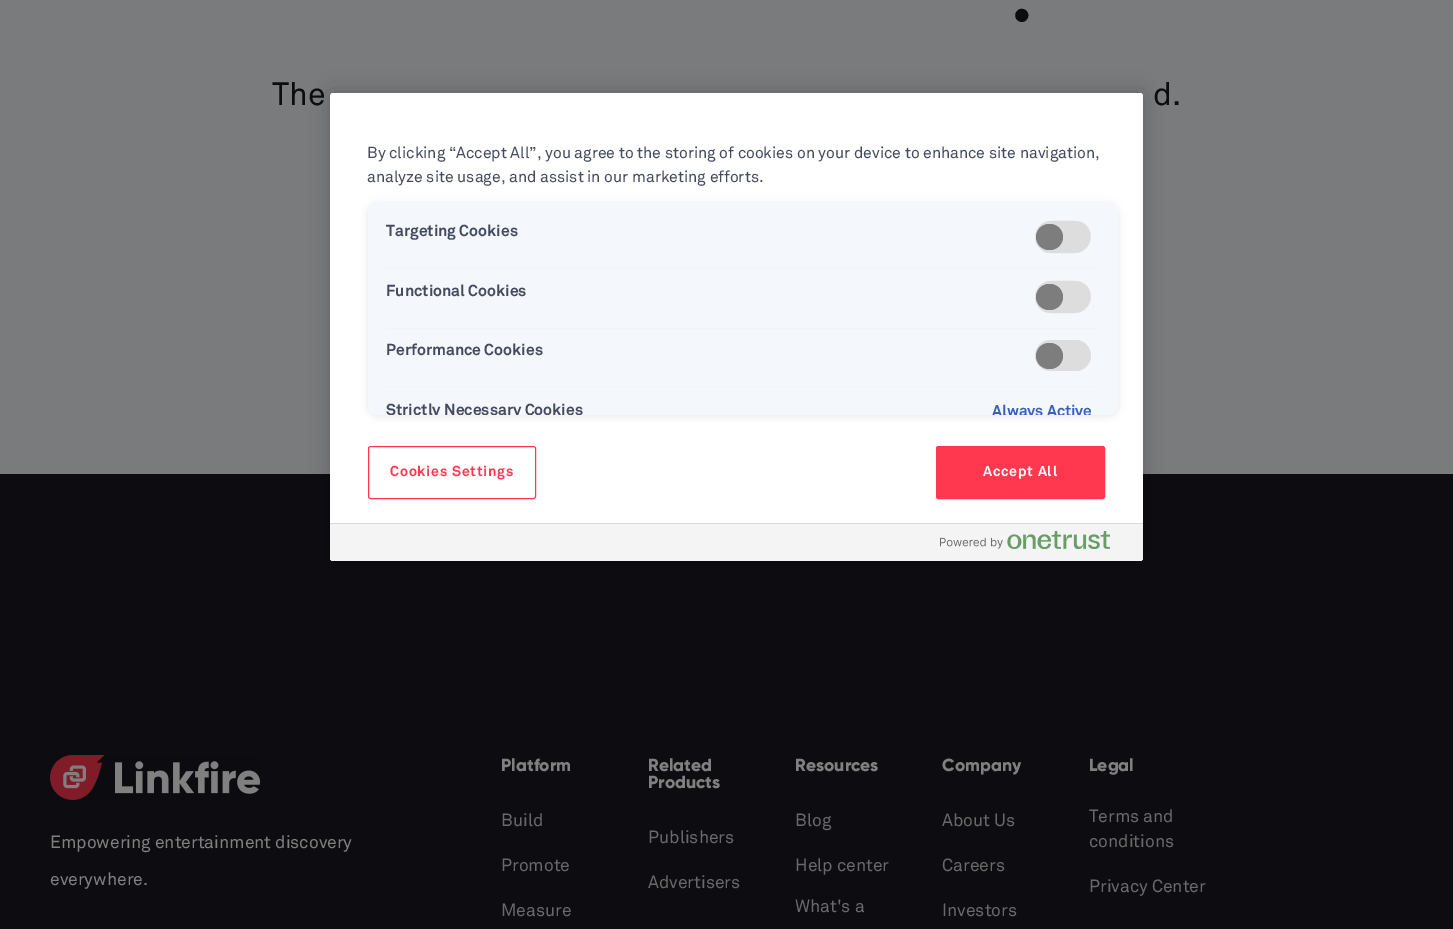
%!PS
<< /PageSize [1453 929] /PageUsesTransparency true >> setpagedevice
/m/moveto load def
/l/rlineto load def
/c/rcurveto load def
/z/closepath load def
/f/fill load def
/s/stroke load def
/q/gsave load def
/Q_/grestore load def
/C { dup -16 bitshift 255 div exch dup -8 bitshift 255 and 255 div exch 255 and 255 div setrgbcolor } def
/F { [ exch dup neg 0 0 3 -1 roll 0 0 ] selectfont } def
/T { moveto show } def
/R { rectfill } def
/A { dup .setfillconstantalpha .setstrokeconstantalpha } def
/Q { 5 dict begin { /r /h /w /y /x } { exch def } forall
  x r add y moveto x w add y 2 copy h add r arct x w add y h add x 1 index r arct
  x y h add x y r arct x y 2 copy exch w add exch r arct closepath end } def
/S { 12 dict begin { /a /b /q /h /w /y /x } { exch def } forall gsave /was 0 def
  9 -2 -9 { dup b mul 4 div /e exch def 1 sub .425 mul 2.718 exch exp 1 add a .99 .min exch div /now exch def
    1 1 now sub 1 was sub div sub A /was now def
    w h .min e 2 mul add 0 gt { x e sub y e sub w e 2 mul add h e 2 mul add
      q e add b .6 mul add w h .min 2 div e add .min 0 .max Q fill } if } for grestore end } def
/I { 5 dict begin { /h /w /y /x /name } { exch def } forall
  gsave x y translate w h scale
  w h 8 [w 0 0 h 0 0] name (r) file false 3 colorimage grestore end } def
0 .pushpdf14devicefilter
0 929 translate 1 -1 scale
4 setmiterlimit
16#7A7B7D C
0 0 1453 929 R
/Gilroy-ExtraBold 70 F
16#0C0C11 C
(.) 1012 21 T
/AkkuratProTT-Regular 32 F
(The) 272 105 T
(d.) 1153 105 T
0 474 1453 455 R
(1.rgb) 50 755 210 45 I
/AkkuratProTT-Regular 17.5 F
16#808080 C
(Empowering entertainment discovery) 50 848 T
(everywhere.) 50 885 T
/Gilroy-ExtraBold 17.5 F
(Platform) 501 771 T
/AkkuratProTT-Regular 17.5 F
16#69696A C
(Build) 501 826 T
(Promote) 501 871 T
(Measure) 501 916 T
/Gilroy-ExtraBold 17.5 F
16#808080 C
(Related) 648 771 T
(Products) 648 788 T
/AkkuratProTT-Regular 17.5 F
16#69696A C
(Publishers) 648 843 T
(Advertisers) 648 888 T
/Gilroy-ExtraBold 17.5 F
16#808080 C
(Resources) 795 771 T
/AkkuratProTT-Regular 17.5 F
16#69696A C
(Blog) 795 826 T
(Help center) 795 871 T
(What's a) 795 912 T
/Gilroy-ExtraBold 17.5 F
16#808080 C
(Company) 942 771 T
/AkkuratProTT-Regular 17.5 F
16#69696A C
(About Us) 942 826 T
(Careers) 942 871 T
(Investors) 942 916 T
/Gilroy-ExtraBold 17.5 F
16#808080 C
(Legal) 1089 771 T
/AkkuratProTT-Regular 17.5 F
16#69696A C
(Terms and) 1089 822 T
(conditions) 1089 847 T
(Privacy Center) 1089 892 T
16#000000 C
330 93 813 468 3 11 .2 S
16#FFFFFF C
330 93 813 468 3 Q f
/AkkuratProTT-Regular 15.75 F
16#454B5F C
(By clicking “Accept All”, you agree to the storing of cookies on your device to enhance site navigation,) 367 158 T
(analyze site usage, and assist in our marketing efforts.) 367 182 T
16#000000 C
368 204 750 212 10 4 .1 S
16#F4F7FC C
368 203 750 212 10 Q f
16#F4F4F4 C
386 268 713 1 R
/AkkuratProTT-Bold 15.75 F
16#454B5F C
(Targeting Cookies) 386 236 T
16#F2F1F1 C
1035 221 56 32 16 Q f
16#DDDDDD C
1051 221 m 7 0 24 -1 30 1 c 16 7 11 30 -6 31 c -6 0 -25 1 -30 -1 c -16 -7 -11 -31 6 -31 c z f
16#7D7D7D C
1036 224 27 26 13 Q f
16#F4F4F4 C
386 328 713 1 R
16#454B5F C
(Functional Cookies) 386 296 T
16#F2F1F1 C
1035 281 56 32 16 Q f
16#DDDDDD C
1051 281 m 7 0 24 -1 30 1 c 16 7 11 30 -6 31 c -6 0 -25 1 -30 -1 c -16 -7 -11 -31 6 -31 c z f
16#7D7D7D C
1036 284 27 26 13 Q f
16#F4F4F4 C
386 386 713 1 R
16#454B5F C
(Performance Cookies) 386 355 T
16#DDDDDD C
1050 340 m 26 0 l 8 0 15 7 15 16 c 0 8 -7 15 -15 15 c -26 0 l -8 0 -15 -7 -15 -15 c 0 -9 7 -16 15 -16 c z f
16#7D7D7D C
1036 343 27 26 13 Q f
q
368 203 750 212 10 Q clip newpath
16#454B5F C
(Strictly Necessary Cookies) 386 415 T
/AkkuratProTT-Bold 15.5 F
16#3860BE C
(Always Active) 992 416 T
Q_
16#FF3850 C
368.5 446.5 167 52 2 Q s
/AkkuratProTT-Bold 14.25 F
390 476 m .75 0 (Cookies Settings) ashow
936.5 446.5 168 52 2 Q q f Q_
s
16#FFFFFF C
983 476 m .75 0 (Accept All) ashow
16#F4F4F4 C
330 523 m 813 0 l 0 35 l 0 1.5 -1.5 3 -3 3 c -807 0 l -1.5 0 -3 -1.5 -3 -3 c z f
16#D8D8D8 C
330 523 813 1 R
(2.rgb) 940 531 170 18 I
.poppdf14devicefilter showpage
